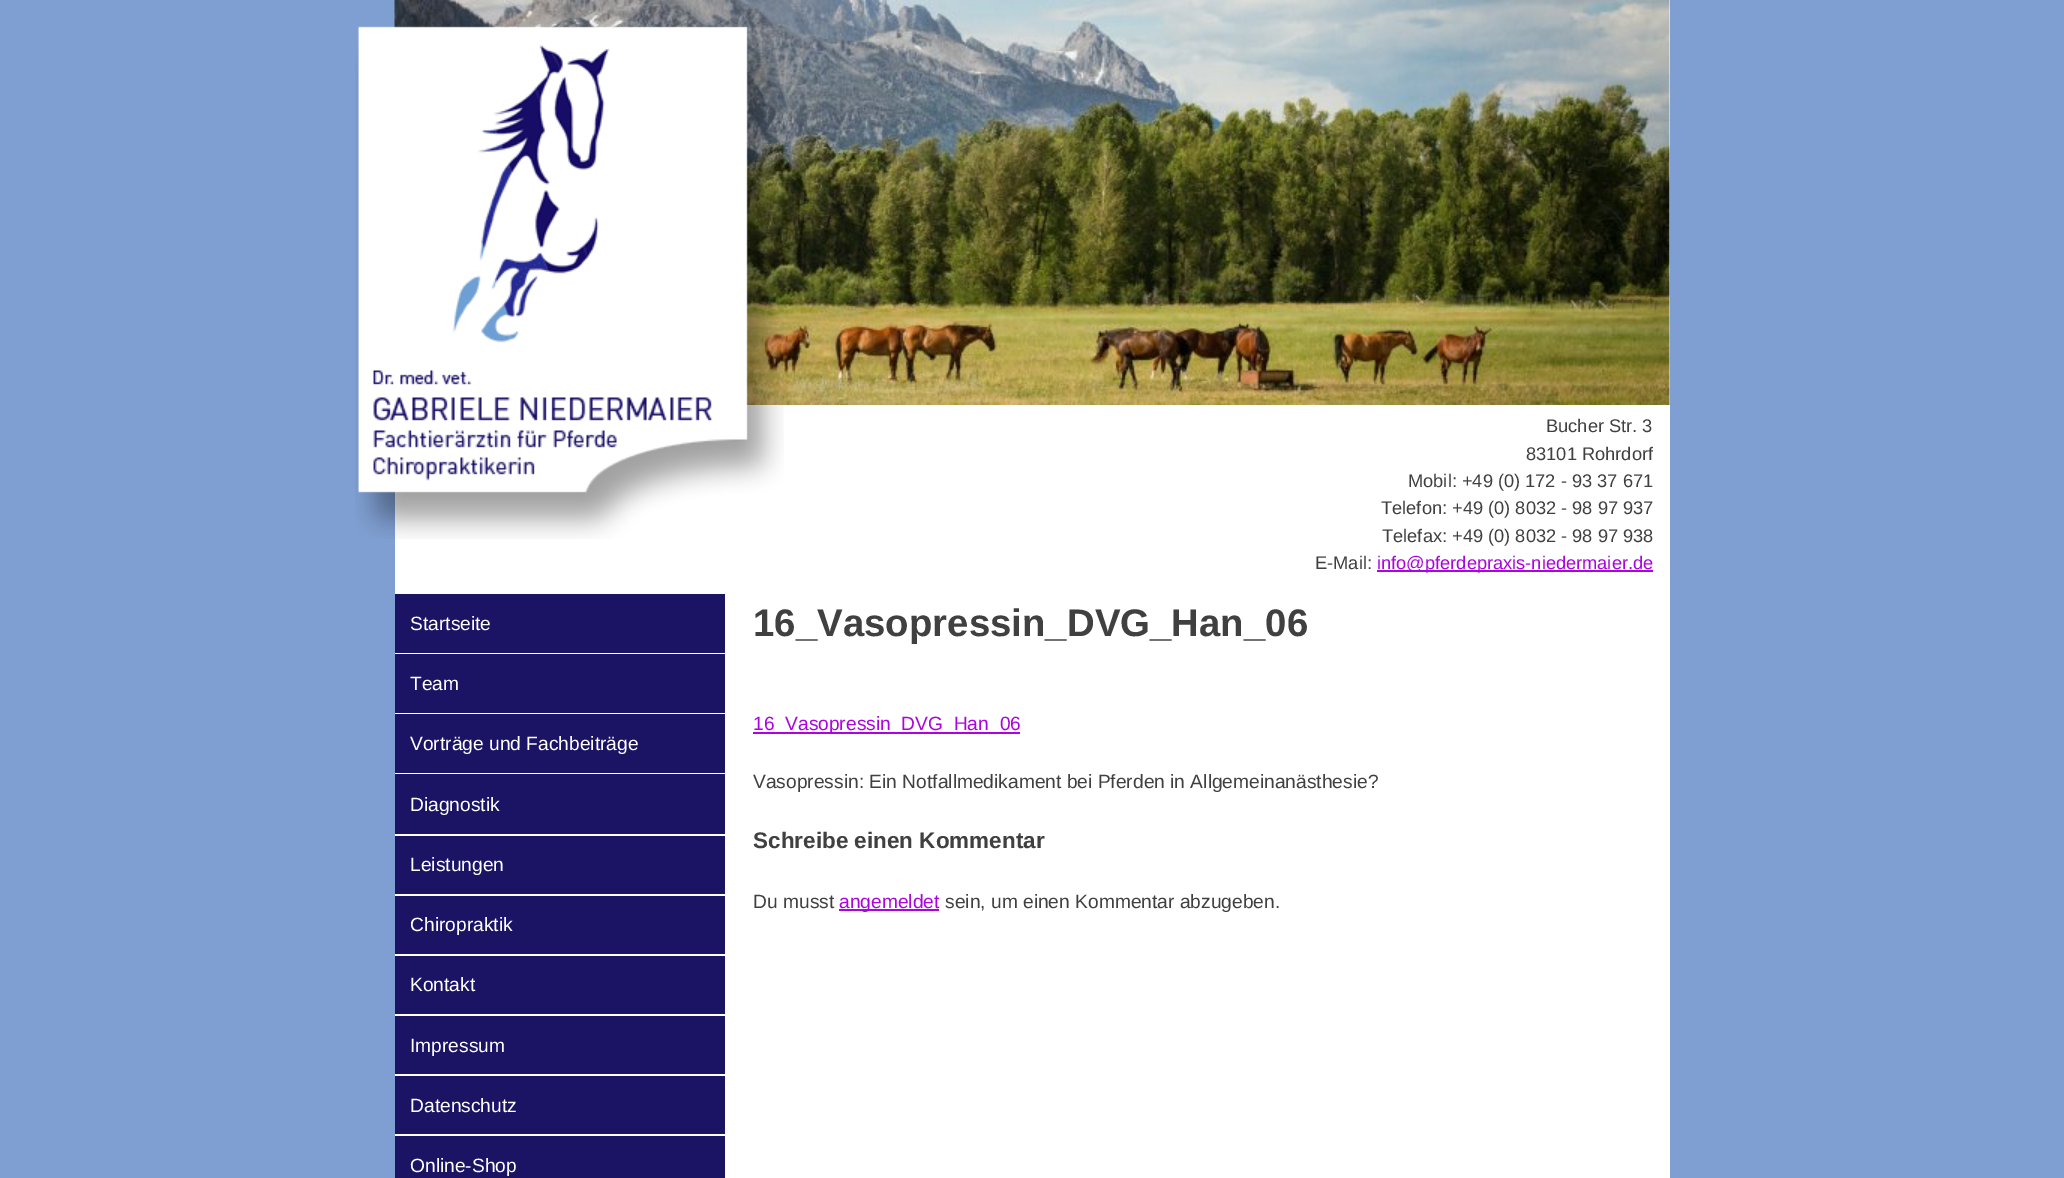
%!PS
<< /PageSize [2064 1178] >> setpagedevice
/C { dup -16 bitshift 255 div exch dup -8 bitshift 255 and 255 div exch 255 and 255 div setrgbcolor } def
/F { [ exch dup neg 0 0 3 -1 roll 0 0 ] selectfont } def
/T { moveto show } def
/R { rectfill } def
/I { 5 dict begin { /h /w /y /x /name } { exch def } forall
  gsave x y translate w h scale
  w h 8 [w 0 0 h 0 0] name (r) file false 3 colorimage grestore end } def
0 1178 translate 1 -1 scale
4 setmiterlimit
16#7F9FD2 C
0 0 2064 1178 R
16#FFFFFF C
395 0 1275 1178 R
(1.rgb) 394 0 1276 405 I
(2.rgb) 355 26 429 513 I
/LiberationSans-Regular 18.25 F
16#404040 C
(Bucher Str. 3) 1546 432 T
(83101 Rohrdorf) 1526 460 T
(Mobil: +49 \(0\) 172 - 93 37 671) 1408 487 T
(Telefon: +49 \(0\) 8032 - 98 97 937) 1381 514 T
(Telefax: +49 \(0\) 8032 - 98 97 938) 1382 542 T
(E-Mail:) 1315 569 T
16#AC04E0 C
1377 570 276 2 R
(info@pferdepraxis-niedermaier.de) 1377 569 T
16#1B1464 C
395 594 330 59 R
/LiberationSans-Regular 19.2 F
16#FFFFFF C
(Startseite) 410 630 T
16#1B1464 C
395 654 330 59 R
16#FFFFFF C
(Team) 410 690 T
16#1B1464 C
395 714 330 59 R
16#FFFFFF C
(Vorträge und Fachbeiträge) 410 750 T
16#1B1464 C
395 774 330 60 R
16#FFFFFF C
(Diagnostik) 410 811 T
16#1B1464 C
395 836 330 58 R
16#FFFFFF C
(Leistungen) 410 871 T
16#1B1464 C
395 896 330 58 R
16#FFFFFF C
(Chiropraktik) 410 931 T
16#1B1464 C
395 956 330 58 R
16#FFFFFF C
(Kontakt) 410 991 T
16#1B1464 C
395 1016 330 58 R
16#FFFFFF C
(Impressum) 410 1052 T
16#1B1464 C
395 1076 330 58 R
16#FFFFFF C
(Datenschutz) 410 1112 T
16#1B1464 C
395 1136 330 42 R
16#FFFFFF C
(Online-Shop) 410 1172 T
/LiberationSans-Bold 38.4 F
16#404040 C
(16_Vasopressin_DVG_Han_06) 753 636 T
16#AC04E0 C
753 732 267 2 R
/LiberationSans-Regular 19.2 F
(16_Vasopressin_DVG_Han_06) 753 730 T
16#404040 C
(Vasopressin: Ein Notfallmedikament bei Pferden in Allgemeinanästhesie?) 753 788 T
/LiberationSans-Bold 22.5 F
(Schreibe einen Kommentar) 753 848 T
/LiberationSans-Regular 19.2 F
(Du musst) 753 908 T
16#AC04E0 C
839 909 100 2 R
(angemeldet) 839 908 T
16#404040 C
(sein, um einen Kommentar abzugeben.) 945 908 T
showpage
